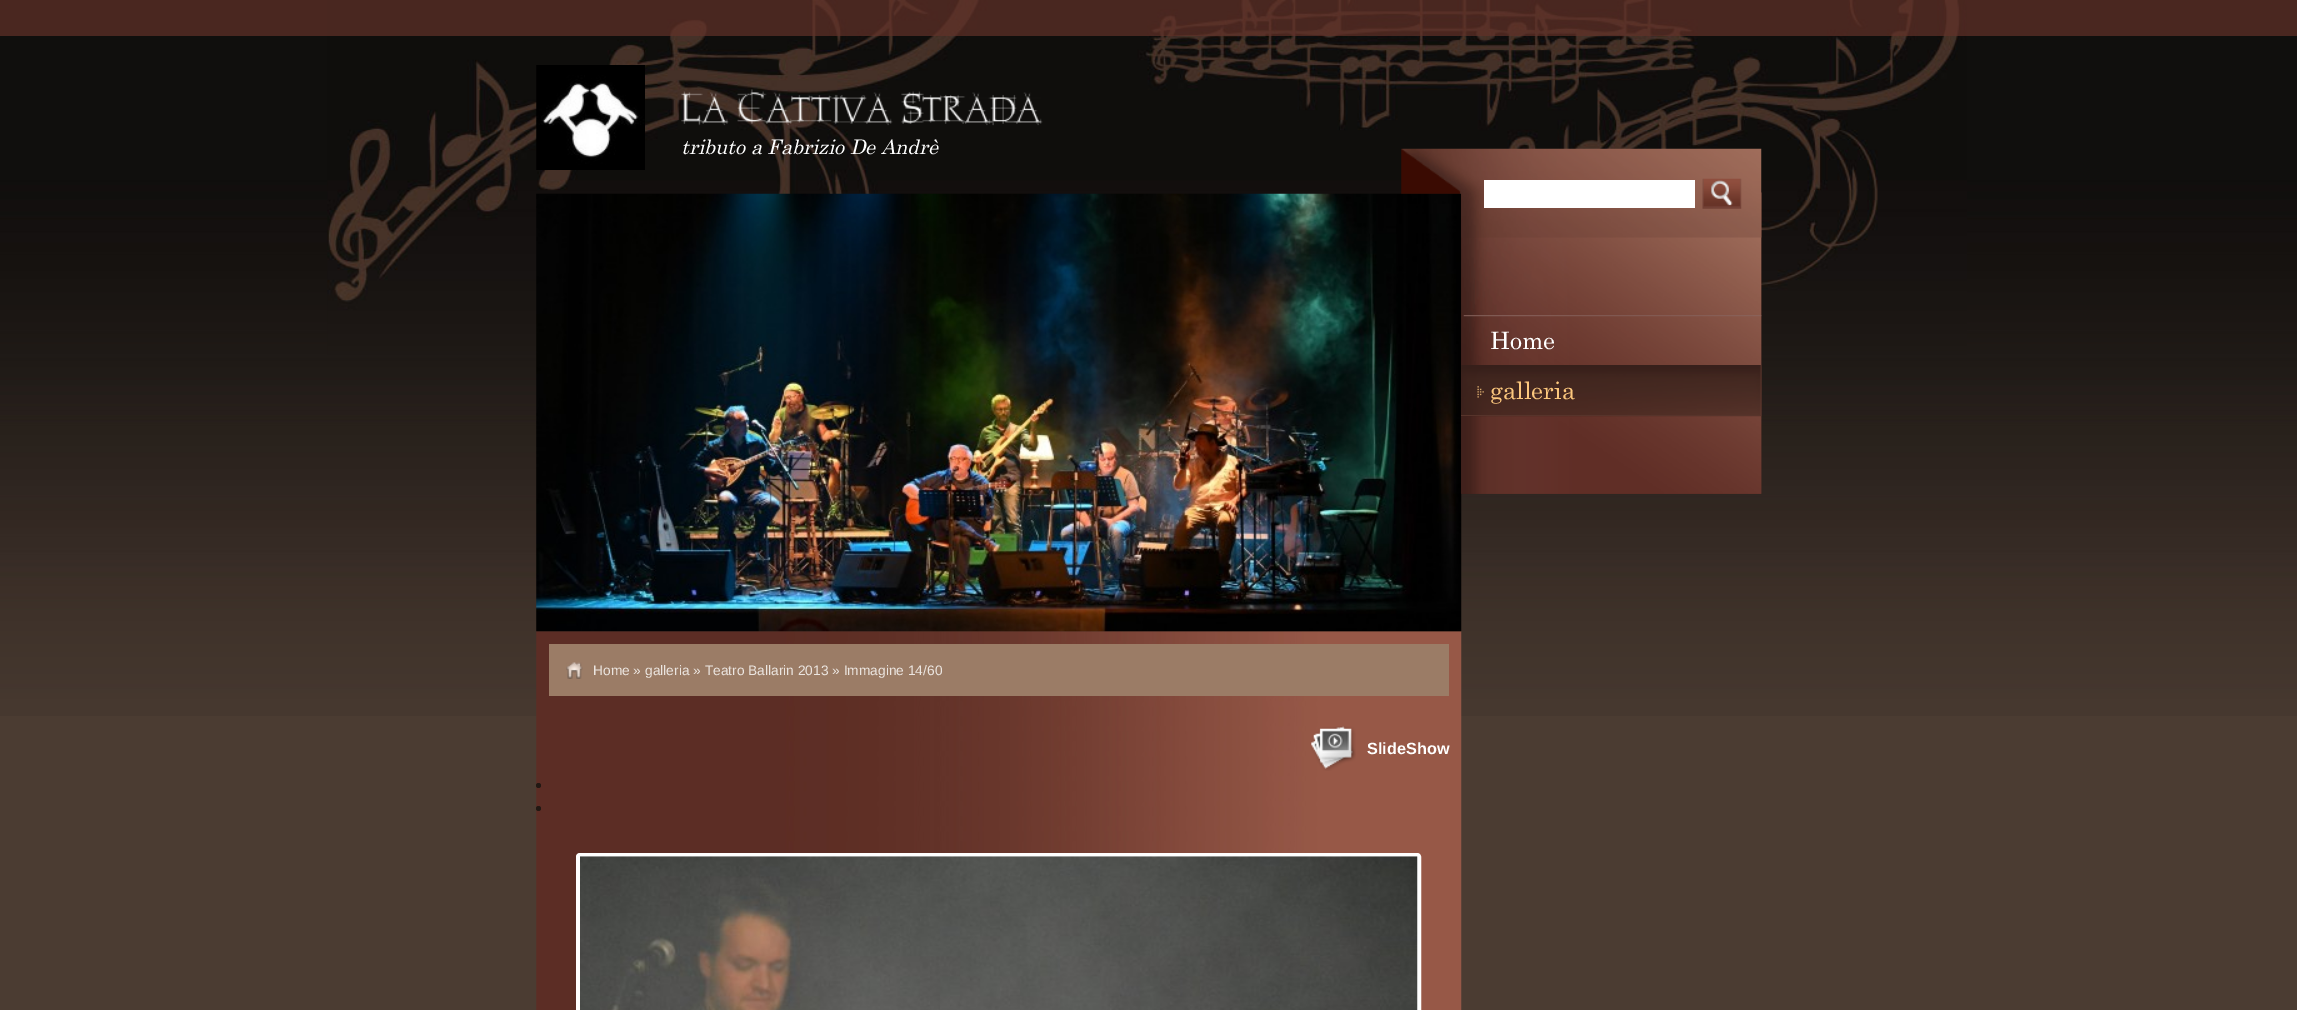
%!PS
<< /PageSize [2297 1010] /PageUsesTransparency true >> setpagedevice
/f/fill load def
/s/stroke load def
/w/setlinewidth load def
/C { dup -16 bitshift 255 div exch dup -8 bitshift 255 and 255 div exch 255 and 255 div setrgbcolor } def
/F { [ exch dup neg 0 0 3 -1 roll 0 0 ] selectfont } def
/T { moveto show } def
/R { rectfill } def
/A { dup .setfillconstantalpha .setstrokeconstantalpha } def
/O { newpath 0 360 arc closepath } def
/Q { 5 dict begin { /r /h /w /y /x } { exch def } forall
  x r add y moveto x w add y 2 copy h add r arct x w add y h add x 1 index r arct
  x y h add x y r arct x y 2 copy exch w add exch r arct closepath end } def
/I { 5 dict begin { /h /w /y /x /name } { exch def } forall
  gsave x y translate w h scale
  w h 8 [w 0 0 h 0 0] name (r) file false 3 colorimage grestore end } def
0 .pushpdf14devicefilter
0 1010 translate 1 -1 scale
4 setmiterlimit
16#4B3C32 C
0 0 2297 1010 R
(1.rgb) 0 0 2297 716 I
(2.rgb) 327 0 1640 355 I
0.7 A
16#623128 C
0 0 2297 36 R
1 A
(3.rgb) 536 65 109 105 I
(4.rgb) 681 89 362 37 I
/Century-Italic 20 F
16#FFFFFF C
(tributo a Fabrizio De Andrè) 681 154 T
(8.rgb) 536 631 926 379 I
(5.rgb) 536 193 926 439 I
(9.rgb) 1461 193 15 301 I
(10.rgb) 1461 192 301 302 I
(11.rgb) 1461 192 301 302 I
(6.rgb) 1401 148 361 90 I
1484 180 211 28 R
(7.rgb) 1702 178 40 31 I
(12.rgb) 1463 315 299 2 I
/Century-Regular 24 F
(Home) 1490 349 T
(13.rgb) 1461 365 301 52 I
(14.rgb) 1477 386 7 12 I
16#57342B C
1461 415 300 1 R
16#FDC87D C
(galleria) 1490 399 T
16#9B7C66 C
549 644 900 52 R
(15.rgb) 566 662 17 17 I
/LiberationSans-Regular 13.75 F
16#EBE5E0 C
(Home » galleria » Teatro Ballarin 2013 » Immagine 14/60) 593 675 T
(16.rgb) 1311 726 45 45 I
/LiberationSans-Bold 16.25 F
16#FFFFFF C
(SlideShow) 1367 754 T
16#211813 C
538.5 785.5 2.5 O f
538.5 808.5 2.5 O f
16#FFFFFF C
4 w
578 855 841 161 2 Q s
(17.rgb) 580 856 838 154 I
.poppdf14devicefilter showpage
